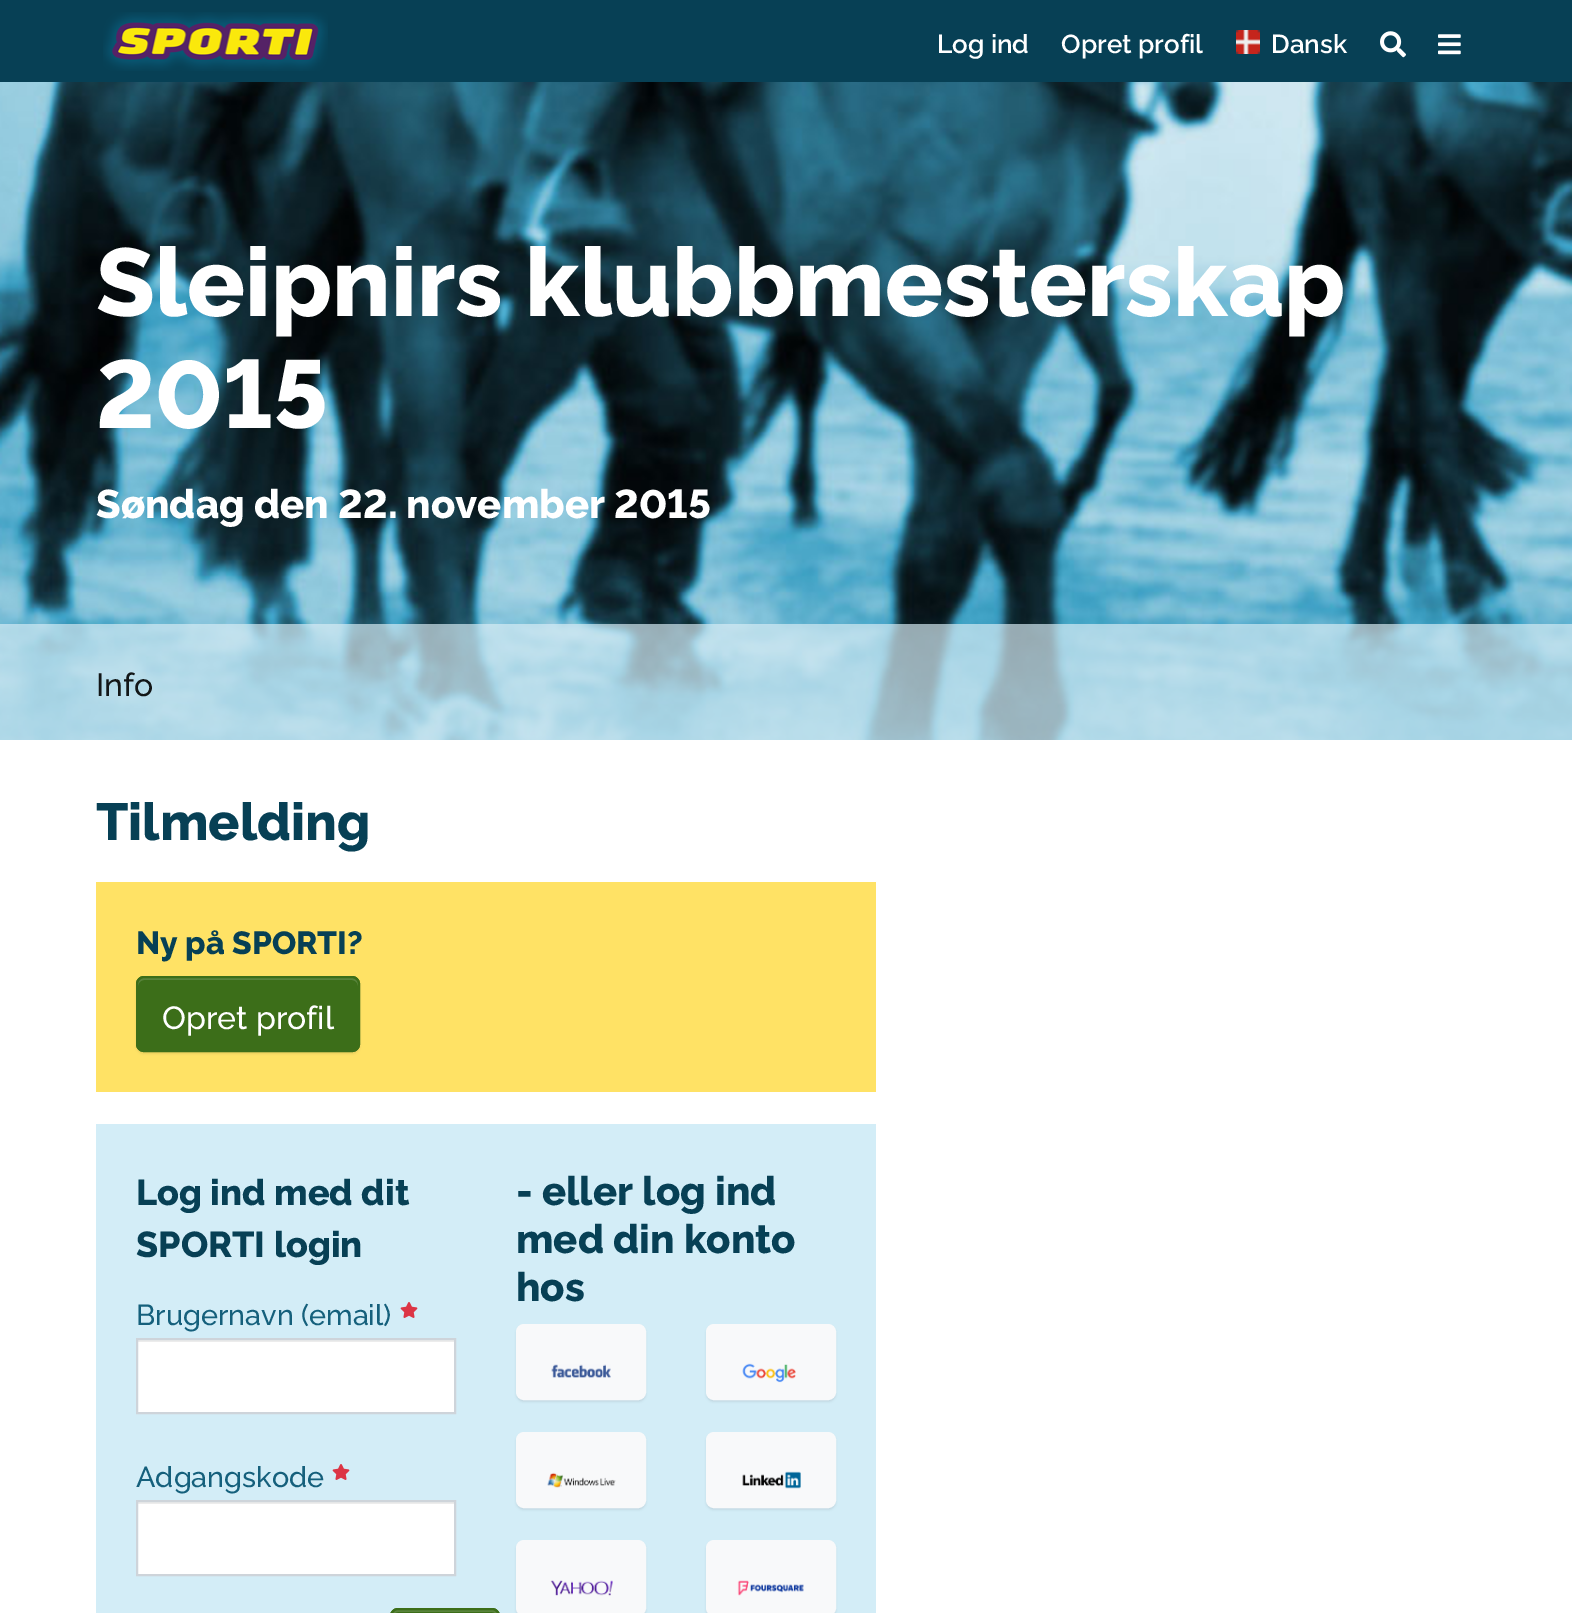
%!PS
<< /PageSize [1572 1613] /PageUsesTransparency true >> setpagedevice
/m/moveto load def
/l/rlineto load def
/c/rcurveto load def
/z/closepath load def
/f/fill load def
/s/stroke load def
/q/gsave load def
/Q_/grestore load def
/w/setlinewidth load def
/C { dup -16 bitshift 255 div exch dup -8 bitshift 255 and 255 div exch 255 and 255 div setrgbcolor } def
/F { [ exch dup neg 0 0 3 -1 roll 0 0 ] selectfont } def
/T { moveto show } def
/R { rectfill } def
/A { dup .setfillconstantalpha .setstrokeconstantalpha } def
/Q { 5 dict begin { /r /h /w /y /x } { exch def } forall
  x r add y moveto x w add y 2 copy h add r arct x w add y h add x 1 index r arct
  x y h add x y r arct x y 2 copy exch w add exch r arct closepath end } def
/S { 12 dict begin { /a /b /q /h /w /y /x } { exch def } forall gsave /was 0 def
  9 -2 -9 { dup b mul 4 div /e exch def 1 sub .425 mul 2.718 exch exp 1 add a .99 .min exch div /now exch def
    1 1 now sub 1 was sub div sub A /was now def
    w h .min e 2 mul add 0 gt { x e sub y e sub w e 2 mul add h e 2 mul add
      q e add b .6 mul add w h .min 2 div e add .min 0 .max Q fill } if } for grestore end } def
/I { 5 dict begin { /h /w /y /x /name } { exch def } forall
  gsave x y translate w h scale
  w h 8 [w 0 0 h 0 0] name (r) file false 3 colorimage grestore end } def
0 .pushpdf14devicefilter
0 1613 translate 1 -1 scale
4 setmiterlimit
16#FFFFFF C
0 0 1572 1613 R
(1.rgb) 0 82 1572 658 I
16#074055 C
0 0 1572 82 R
(2.rgb) 103 12 225 59 I
/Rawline-SemiBold 26 F
16#FFFFFF C
(Log ind) 937 53 T
(Opret profil) 1061 53 T
(3.rgb) 1236 30 24 24 I
(Dansk) 1271 53 T
(4.rgb) 1380 31 26 27 I
(5.rgb) 1438 34 23 21 I
/Rawline-ExtraBold 96 F
(Sleipnirs klubbmesterskap) 96 316 T
(2015) 96 428 T
/Rawline-ExtraBold 40 F
(Søndag den 22. november 2015) 96 518 T
0.68 A
16#D9EDF5 C
0 624 1572 116 R
/Rawline-Medium 32 F
1 A
16#121617 C
(Info) 96 696 T
/Rawline-ExtraBold 52 F
16#074055 C
(Tilmelding) 96 840 T
16#FFE265 C
96 882 780 210 R
/Rawline-ExtraBold 32 F
16#074055 C
(Ny på SPORTI?) 136 954 T
16#000000 C
136 978 224 76 8 1 .07 S
16#3C6E19 C
136 976 224 76 8 Q f
16#59843C C
144 980 m 208 0 l 3 0 6 3 6 6 c 0 -2 l 0 -3 -3 -6 -6 -6 c -208 0 l -3 0 -6 3 -6 6 c 0 2 l 0 -3 3 -6 6 -6 c z f
16#3C6E19 C
2 w
137 977 222 74 7 Q s
/Rawline-Medium 32 F
16#FFFFFF C
(Opret profil) 162 1029 T
16#D3EDF7 C
96 1124 780 489 R
/Rawline-ExtraBold 36 F
16#074055 C
(Log ind med dit) 136 1205 T
(SPORTI login) 136 1257 T
/Rawline-Medium 28.75 F
16#15607C C
(Brugernavn \(email\)) 136 1325 T
(6.rgb) 400 1302 18 16 I
16#FFFFFF C
138 1342 316 70 R
16#ECECEC C
138 1340 316 2 R
16#CED4DA C
137 1339 318 74 rectstroke
16#15607C C
(Adgangskode) 136 1487 T
(6.rgb) 332 1464 18 16 I
16#FFFFFF C
138 1504 316 70 R
16#ECECEC C
138 1502 316 2 R
16#CED4DA C
137 1501 318 74 rectstroke
16#3C6E19 C
390 1608 110 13 8 Q f
16#59843C C
398 1612 m 94 0 l 3 0 6 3 6 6 c 0 -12 -12 -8 -22 -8 c -62 0 l -10 0 -22 -4 -22 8 c 0 -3 3 -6 6 -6 c z f
16#3C6E19 C
391 1609 108 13 7 Q s
/Rawline-ExtraBold 40 F
16#074055 C
(- eller log ind) 516 1205 T
(med din konto) 516 1253 T
(hos) 516 1301 T
16#000000 C
516 1326 130 76 8 1 .07 S
16#F8F9FA C
517 1325 128 74 7 Q q f Q_
s
(7.rgb) 551 1364 60 14 I
16#000000 C
706 1326 130 76 8 1 .07 S
16#F8F9FA C
707 1325 128 74 7 Q q f Q_
s
(8.rgb) 742 1363 54 20 I
16#000000 C
516 1434 130 76 8 1 .07 S
16#F8F9FA C
517 1433 128 74 7 Q q f Q_
s
(9.rgb) 547 1472 69 16 I
16#000000 C
706 1434 130 76 8 1 .07 S
16#F8F9FA C
707 1433 128 74 7 Q q f Q_
s
(10.rgb) 742 1471 59 18 I
16#000000 C
516 1542 130 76 8 1 .07 S
16#F8F9FA C
517 1541 128 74 7 Q q f Q_
s
(11.rgb) 550 1580 63 16 I
16#000000 C
706 1542 130 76 8 1 .07 S
16#F8F9FA C
707 1541 128 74 7 Q q f Q_
s
(12.rgb) 737 1580 67 16 I
.poppdf14devicefilter showpage
